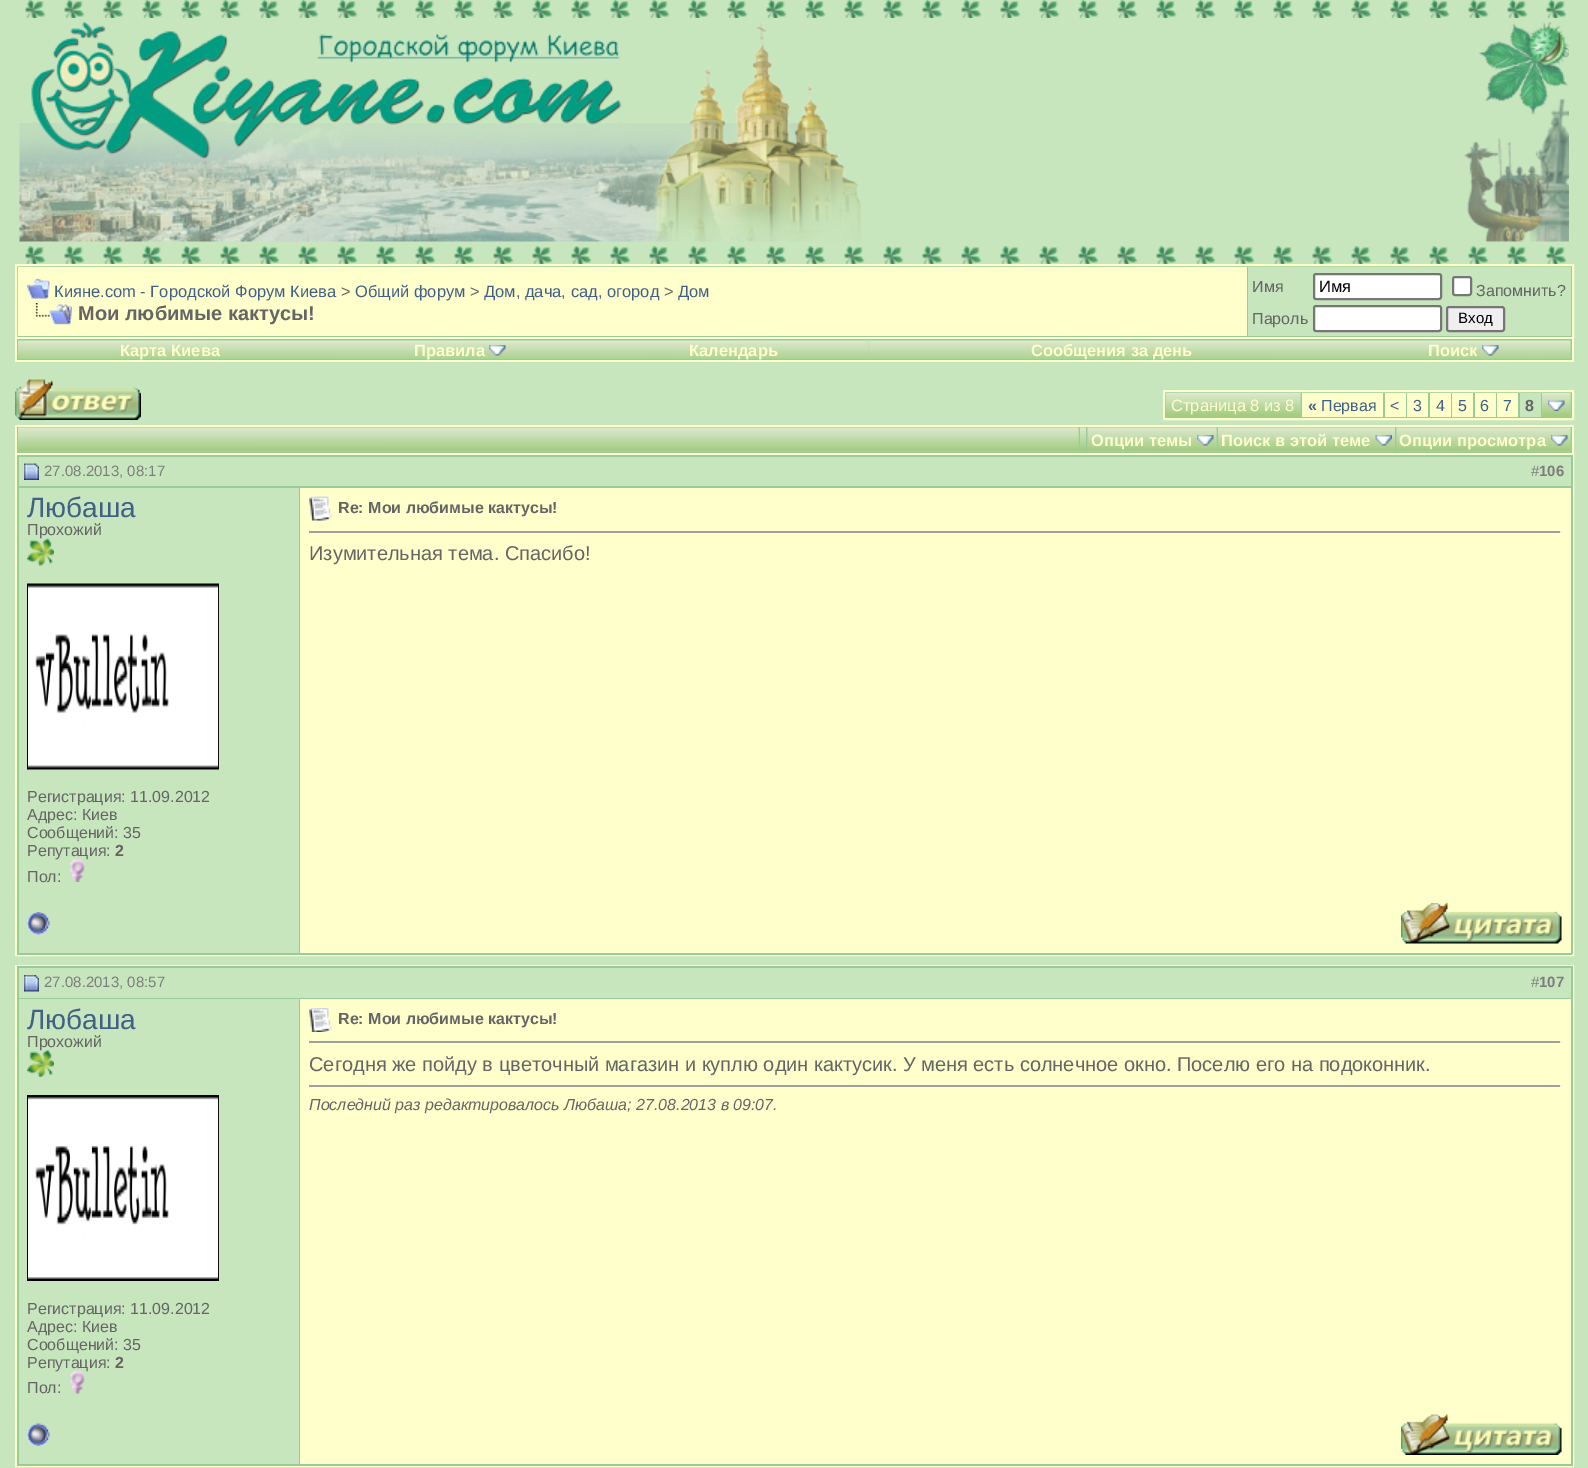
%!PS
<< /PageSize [1588 1468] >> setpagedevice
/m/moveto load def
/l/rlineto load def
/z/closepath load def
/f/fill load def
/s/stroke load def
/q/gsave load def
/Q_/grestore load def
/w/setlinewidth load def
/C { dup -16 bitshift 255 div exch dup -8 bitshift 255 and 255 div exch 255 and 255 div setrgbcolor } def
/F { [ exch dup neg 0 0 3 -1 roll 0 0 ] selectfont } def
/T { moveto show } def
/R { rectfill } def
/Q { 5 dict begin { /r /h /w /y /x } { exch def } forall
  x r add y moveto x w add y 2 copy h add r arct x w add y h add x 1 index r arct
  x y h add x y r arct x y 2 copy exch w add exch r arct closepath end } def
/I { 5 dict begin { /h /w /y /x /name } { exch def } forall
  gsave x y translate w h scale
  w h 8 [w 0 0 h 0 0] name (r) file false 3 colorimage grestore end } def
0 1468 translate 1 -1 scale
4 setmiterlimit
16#C8E6BE C
0 0 1588 1468 R
(1.rgb) 25 0 1542 18 I
(2.rgb) 19 22 843 220 I
(3.rgb) 1464 22 105 220 I
(4.rgb) 25 246 1542 18 I
16#99CC99 C
16 265 m 1557 0 l 0 73 l -1557 0 l z q f Q_
16#FFFFCC C
2 w
s
18 267 1229 69 R
(5.rgb) 27 278 23 21 I
/LiberationSans-Regular 16.5 F
16#416088 C
(Кияне.com - Городской Форум Киева) 54 297 T
16#656565 C
(>) 341 297 T
16#416088 C
(Общий форум) 355 297 T
16#656565 C
(>) 470 297 T
16#416088 C
(Дом, дача, сад, огород) 484 297 T
16#656565 C
(>) 664 297 T
16#416088 C
(Дом) 678 297 T
(6.rgb) 35 303 37 22 I
/LiberationSans-Bold 20 F
16#656565 C
(Мои любимые кактусы!) 78 320 T
16#C8E6BE C
1248 267 323 69 R
/LiberationSans-Regular 16 F
16#656565 C
(Имя) 1252 292 T
16#FFFFFF C
1314 274 127 25 2 Q q f Q_
16#767676 C
s
/LiberationSans-Regular 16.5 F
16#000000 C
(Имя) 1319 292 T
16#FFFFFF C
1453 277 18 18 2 Q q f Q_
16#767676 C
s
/LiberationSans-Regular 16 F
16#656565 C
(Запомнить?) 1476 296 T
(Пароль) 1252 324 T
16#FFFFFF C
1314 306 127 25 2 Q q f Q_
16#767676 C
s
16#EFEFEF C
1447 307 57 24 2 Q q f Q_
16#767676 C
s
/LiberationSans-Regular 15 F
16#000000 C
(Вход) 1458 323 T
16#99CC99 C
17 339 1555 21 R
16#FFFFCC C
1572 339 2 23 R
15 360 1559 2 R
15 339 2 23 R
16#99DD99 C
18 358 582 1 R
(7.rgb) 18 340 303 19 I
/LiberationSans-Bold 16.5 F
16#FFFFCC C
(Карта Киева) 120 356 T
(8.rgb) 321 340 279 19 I
(Правила) 414 356 T
(9.rgb) 489 345 17 11 I
16#99DD99 C
600 341 269 18 R
(10.rgb) 600 340 269 19 I
16#FFFFCC C
(Календарь) 689 356 T
16#99DD99 C
869 358 487 1 R
(11.rgb) 868 340 488 19 I
16#FFFFCC C
(Сообщения за день) 1031 356 T
16#99DD99 C
1356 341 215 18 R
(12.rgb) 1356 340 215 19 I
16#FFFFCC C
(Поиск) 1428 356 T
(9.rgb) 1482 345 17 11 I
(13.rgb) 15 379 126 41 I
16#99CC99 C
1164 391 m 409 0 l 0 28 l -409 0 l z q f Q_
16#FFFFCC C
s
16#99DD99 C
1300 393 1 24 R
(14.rgb) 1165 393 136 24 I
/LiberationSans-Regular 16.5 F
16#FFFFCC C
(Страница 8 из 8) 1171 411 T
1302 393 81 24 R
/LiberationSans-Bold 16 F
16#416088 C
(«) 1308 411 T
/LiberationSans-Regular 16 F
(Первая) 1321 411 T
16#FFFFCC C
1385 393 21 24 R
16#416088 C
(<) 1390 411 T
16#FFFFCC C
1407 393 21 24 R
16#416088 C
(3) 1413 411 T
16#FFFFCC C
1430 393 21 24 R
16#416088 C
(4) 1436 411 T
16#FFFFCC C
1452 393 21 24 R
16#416088 C
(5) 1458 411 T
16#FFFFCC C
1475 393 21 24 R
16#416088 C
(6) 1480 411 T
16#FFFFCC C
1497 393 21 24 R
16#416088 C
(7) 1503 411 T
16#C8E6BE C
1520 393 21 24 R
/LiberationSans-Bold 16 F
16#656565 C
(8) 1525 411 T
16#99DD99 C
1570 393 1 24 R
(15.rgb) 1542 393 29 24 I
(16.rgb) 1548 400 17 11 I
16#99CC99 C
17 427 1555 26 R
16#FFFFCC C
15 425 1559 2 R
1572 425 2 28 R
15 425 2 28 R
16#99DD99 C
18 428 1061 24 R
(17.rgb) 18 427 1061 25 I
1080 451 6 1 R
(18.rgb) 1080 427 6 25 I
1088 428 129 24 R
(19.rgb) 1087 427 130 25 I
/LiberationSans-Bold 16.5 F
16#FFFFCC C
(Опции темы) 1091 446 T
(20.rgb) 1197 435 17 11 I
16#99DD99 C
1218 451 177 1 R
(21.rgb) 1218 427 177 25 I
16#FFFFCC C
(Поиск в этой теме) 1221 446 T
(22.rgb) 1375 435 17 11 I
16#99DD99 C
1397 428 174 24 R
(23.rgb) 1396 427 175 25 I
16#FFFFCC C
(Опции просмотра) 1399 446 T
(24.rgb) 1551 435 17 11 I
16 454 1557 501 rectstroke
16#99CC99 C
17 455 1555 2 R
17 486 283 2 R
17 455 2 439 R
(25.rgb) 24 463 15 17 I
/LiberationSans-Regular 15 F
16#7D7D7D C
(27.08.2013, 08:17) 44 476 T
16#99CC99 C
1571 455 2 499 R
300 486 1272 2 R
16#7D7D7D C
(#) 1531 476 T
/LiberationSans-Bold 15 F
(106) 1539 476 T
16#99CC99 C
299 488 1 466 R
/LiberationSans-Regular 28 F
16#416088 C
(Любаша) 27 517 T
/LiberationSans-Regular 16 F
16#656565 C
(Прохожий) 27 535 T
(26.rgb) 27 538 27 28 I
(27.rgb) 27 583 192 187 I
(Регистрация: 11.09.2012) 27 802 T
(Адрес: Киев) 27 820 T
(Сообщений: 35) 27 838 T
(Репутация:) 27 856 T
/LiberationSans-Bold 16 F
(2) 115 856 T
/LiberationSans-Regular 16 F
(Пол:) 27 882 T
(28.rgb) 70 859 15 23 I
16#FFFFCC C
300 488 1271 465 R
(29.rgb) 309 496 23 25 I
/LiberationSans-Bold 16 F
16#656565 C
(Re: Мои любимые кактусы!) 338 513 T
16#9F9F9F C
309 531 1253 2 R
16#EEEEEE C
1560 531 2 2 R
/LiberationSans-Regular 20 F
16#656565 C
(Изумительная тема. Спасибо!) 309 560 T
16#99CC99 C
17 953 1555 2 R
17 894 2 60 R
(30.rgb) 27 912 23 23 I
(31.rgb) 1401 903 161 41 I
16#FFFFCC C
16 966 1557 500 rectstroke
16#99CC99 C
17 966 1555 2 R
17 998 283 1 R
17 966 2 440 R
(32.rgb) 24 975 15 17 I
/LiberationSans-Regular 15 F
16#7D7D7D C
(27.08.2013, 08:57) 44 987 T
16#99CC99 C
1571 966 2 500 R
300 998 1272 1 R
16#7D7D7D C
(#) 1531 987 T
/LiberationSans-Bold 15 F
(107) 1539 987 T
16#99CC99 C
299 999 1 467 R
/LiberationSans-Regular 28 F
16#416088 C
(Любаша) 27 1029 T
/LiberationSans-Regular 16 F
16#656565 C
(Прохожий) 27 1047 T
(33.rgb) 27 1050 27 27 I
(34.rgb) 27 1095 192 186 I
(Регистрация: 11.09.2012) 27 1314 T
(Адрес: Киев) 27 1332 T
(Сообщений: 35) 27 1350 T
(Репутация:) 27 1368 T
/LiberationSans-Bold 16 F
(2) 115 1368 T
/LiberationSans-Regular 16 F
(Пол:) 27 1393 T
(35.rgb) 70 1371 15 23 I
16#FFFFCC C
300 999 1271 465 R
(36.rgb) 309 1008 23 24 I
/LiberationSans-Bold 16 F
16#656565 C
(Re: Мои любимые кактусы!) 338 1024 T
16#9F9F9F C
309 1041 1253 2 R
16#EEEEEE C
1560 1041 2 2 R
/LiberationSans-Regular 20 F
16#656565 C
(Сегодня же пойду в цветочный магазин и куплю один кактусик. У меня есть солнечное окно. Поселю его на подоконник.) 309 1071 T
16#9F9F9F C
309 1085 1253 2 R
16#EEEEEE C
1560 1085 2 2 R
/LiberationSans-Italic 16 F
16#656565 C
(Последний раз редактировалось Любаша; 27.08.2013 в) 309 1110 T
(09:07.) 733 1110 T
16#99CC99 C
17 1464 1555 2 R
17 1406 2 60 R
(37.rgb) 27 1423 23 23 I
(38.rgb) 1401 1414 161 41 I
showpage
